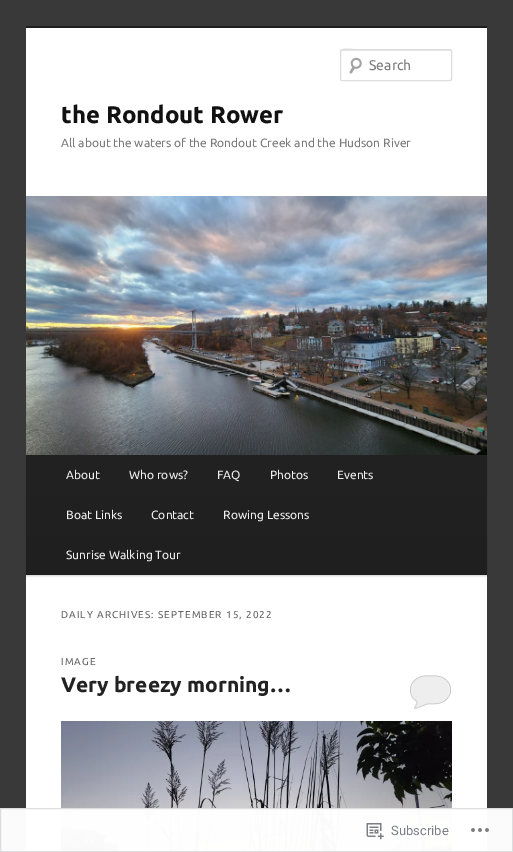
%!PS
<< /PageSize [513 852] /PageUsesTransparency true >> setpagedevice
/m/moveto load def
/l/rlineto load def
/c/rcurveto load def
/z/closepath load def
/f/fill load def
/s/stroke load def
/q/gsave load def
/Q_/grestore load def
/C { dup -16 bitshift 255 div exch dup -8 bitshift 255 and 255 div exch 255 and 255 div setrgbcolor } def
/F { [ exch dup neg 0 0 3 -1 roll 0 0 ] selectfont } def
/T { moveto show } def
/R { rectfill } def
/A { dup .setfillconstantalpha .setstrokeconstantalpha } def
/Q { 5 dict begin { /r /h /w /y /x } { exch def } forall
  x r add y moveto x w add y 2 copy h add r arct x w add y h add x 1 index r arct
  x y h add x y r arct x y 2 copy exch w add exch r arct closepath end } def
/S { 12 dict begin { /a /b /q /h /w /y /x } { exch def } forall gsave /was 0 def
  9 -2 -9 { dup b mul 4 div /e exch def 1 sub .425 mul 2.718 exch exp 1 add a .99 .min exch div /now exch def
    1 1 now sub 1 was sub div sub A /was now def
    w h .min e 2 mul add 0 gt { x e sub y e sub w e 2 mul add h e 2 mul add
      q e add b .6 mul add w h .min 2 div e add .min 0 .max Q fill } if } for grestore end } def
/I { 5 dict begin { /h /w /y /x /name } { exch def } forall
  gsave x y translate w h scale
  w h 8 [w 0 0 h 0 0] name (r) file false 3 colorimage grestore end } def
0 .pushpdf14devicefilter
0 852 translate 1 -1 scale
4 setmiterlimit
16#393939 C
0 0 513 852 R
16#FFFFFF C
26 28 461 824 R
16#1E1E1E C
26 26 461 2 R
(1.rgb) 349 57 13 17 I
16#E6E6E6 C
342 51 m 109 0 l 0 1 l -1 -2 l -90 0 l -4 0 -19 -5 -19 2 c 0 -1 0 -1 1 -1 c z f
16#DDDDDD C
340.5 49.5 111 31 1.5 Q s
/Ubuntu-Regular 14 F
16#7A7A7A C
(Search) 369 70 T
/Ubuntu-Bold 24 F
16#111111 C
(the Rondout Rower) 61 123 T
/Ubuntu-Regular 12 F
16#7A7A7A C
(All about the waters of the Rondout Creek and the Hudson River) 61 147 T
16#000000 C
26 456 461 120 0 1 .2 S
(2.rgb) 26 196 461 259 I
q 26 455 m 461 0 l 0 120 l -461 0 l z clip newpath
<< /ShadingType 2 /ColorSpace /DeviceRGB /Coords [257 455 257 575] /Extend [true true] /Function << /FunctionType 2 /Domain [0 1] /C0 [.133 .133 .133] /C1 [.122 .122 .122] /N 1 >> >> shfill Q_
16#EEEEEE C
(About) 66 479 T
(Who rows?) 129 479 T
(FAQ) 217 479 T
(Photos) 270 479 T
(Events) 337 479 T
(Boat Links) 66 519 T
(Contact) 151 519 T
(Rowing Lessons) 223 519 T
(Sunrise Walking Tour) 66 559 T
/Ubuntu-Regular 10 F
16#666666 C
61 618 m 1 0 (DAILY ARCHIVES: SEPTEMBER 15, 2022) ashow
61 665 m 1 0 (IMAGE) ashow
/Ubuntu-Bold 21 F
16#222222 C
(Very breezy morning…) 61 692 T
16#EEEEEE C
410 675 41 34 R
(3.rgb) 409 673 43 36 I
(4.rgb) 61 721 391 131 I
0.98 A
16#FFFFFF C
0 808 513 44 R
16#DCDCDE C
.5 808.5 512 43 rectstroke
1 A
(5.rgb) 366 823 18 17 I
/Roboto-Regular 13 F
16#7B7F84 C
(Subscribe) 391 835 T
(6.rgb) 471 828 18 4 I
.poppdf14devicefilter showpage
